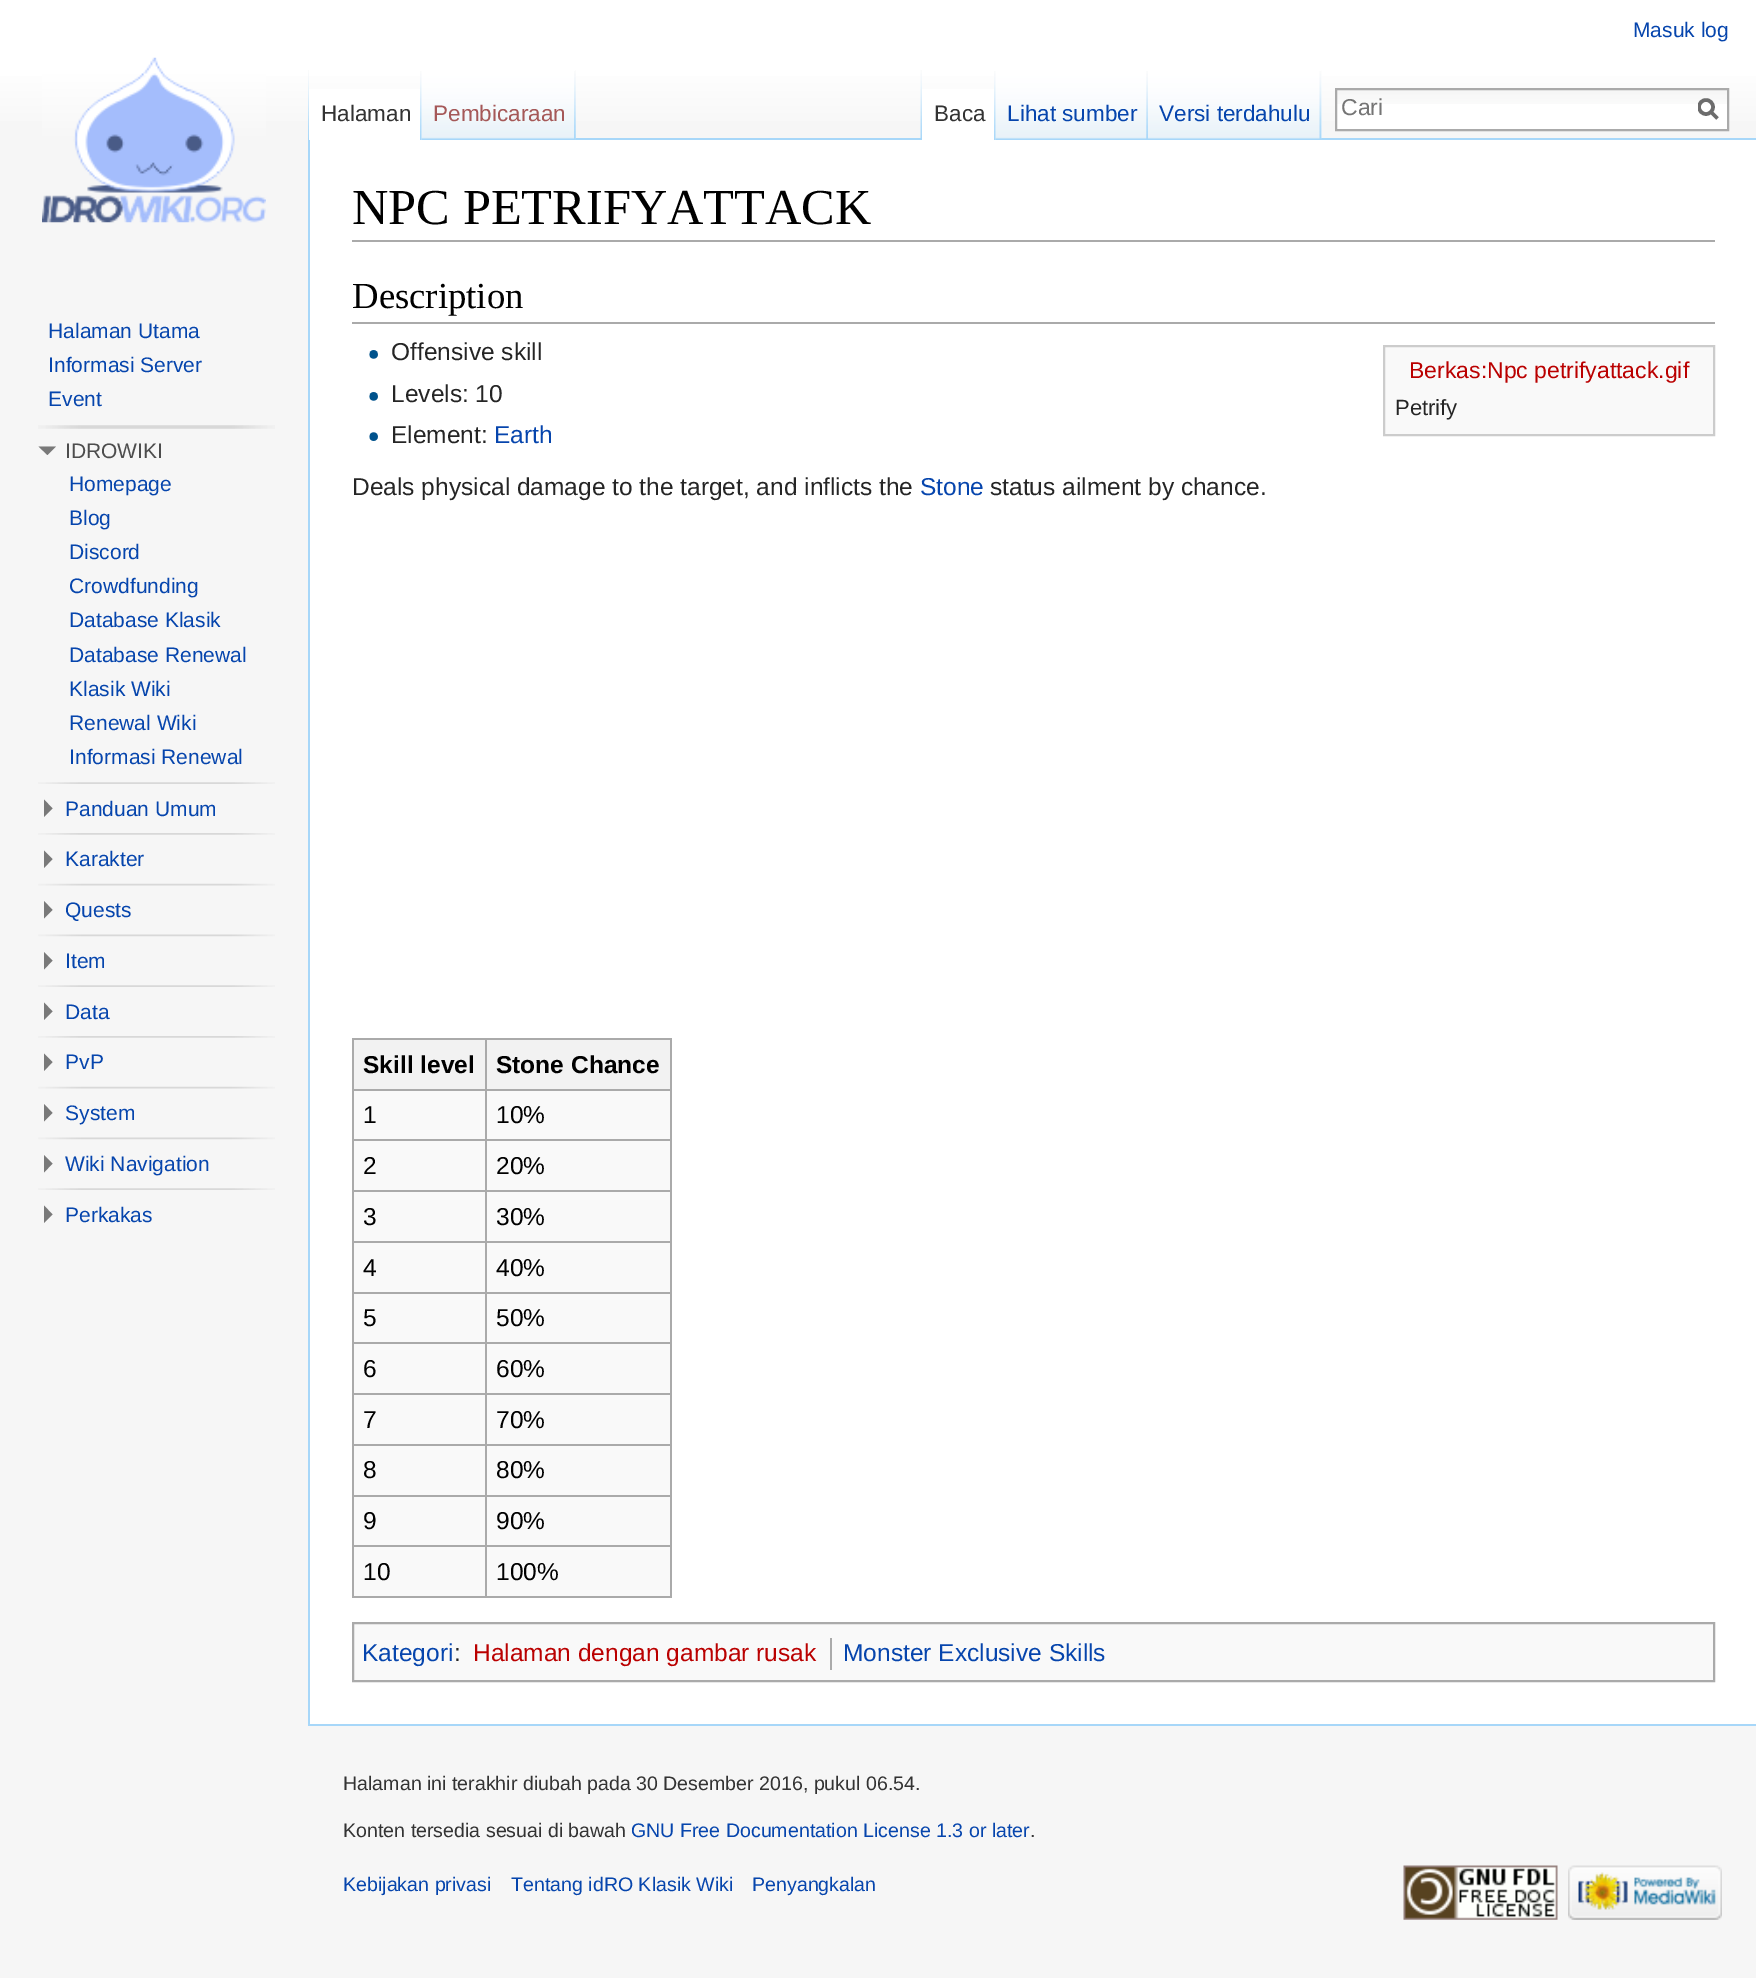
%!PS
<< /PageSize [1756 1978] >> setpagedevice
/m/moveto load def
/l/rlineto load def
/z/closepath load def
/f/fill load def
/s/stroke load def
/q/gsave load def
/Q_/grestore load def
/w/setlinewidth load def
/C { dup -16 bitshift 255 div exch dup -8 bitshift 255 and 255 div exch 255 and 255 div setrgbcolor } def
/F { [ exch dup neg 0 0 3 -1 roll 0 0 ] selectfont } def
/T { moveto show } def
/R { rectfill } def
/O { newpath 0 360 arc closepath } def
/I { 5 dict begin { /h /w /y /x /name } { exch def } forall
  gsave x y translate w h scale
  w h 8 [w 0 0 h 0 0] name (r) file false 3 colorimage grestore end } def
0 1978 translate 1 -1 scale
4 setmiterlimit
16#F6F6F6 C
0 0 1756 1978 R
q 0 0 m 1756 0 l 0 121 l -1756 0 l z clip newpath
<< /ShadingType 2 /ColorSpace /DeviceRGB /Coords [879 0 879 140] /Extend [true true] /Function << /FunctionType 3 /Domain [0 1] /Functions [<< /FunctionType 2 /Domain [0 1] /C0 [1 1 1] /C1 [1 1 1] /N 1 >> << /FunctionType 2 /Domain [0 1] /C0 [1 1 1] /C1 [.965 .965 .965] /N 1 >>] /Bounds [.5] /Encode [0 1 0 1] >> >> shfill Q_
/LiberationSans-Regular 21 F
16#0645AD C
(Masuk log) 1633 37 T
(1.rgb) 308 70 1 68 I
(2.rgb) 575 70 1 68 I
16#A7D7F9 C
308 1724 1448 2 R
308 138 2 1588 R
16#FFFFFF C
309 89 113 51 R
(3.rgb) 420 71 2 69 I
/LiberationSans-Regular 22.5 F
16#333333 C
(Halaman) 321 121 T
16#A7D7F9 C
575 138 1181 2 R
(4.rgb) 421 70 155 70 I
(5.rgb) 574 71 2 69 I
16#A55858 C
(Pembicaraan) 433 121 T
(6.rgb) 920 70 2 68 I
(7.rgb) 1321 70 1 68 I
16#FFFFFF C
922 89 74 51 R
(3.rgb) 994 71 2 69 I
16#333333 C
(Baca) 934 121 T
(8.rgb) 995 70 153 70 I
(9.rgb) 1146 71 2 68 I
16#0645AD C
(Lihat sumber) 1007 121 T
(10.rgb) 1148 70 174 70 I
(11.rgb) 1319 71 3 68 I
(Versi terdahulu) 1159 121 T
16#FFFFFF C
1337 104 390 25 R
(12.rgb) 1337 90 390 14 I
16#AAAAAA C
2 w
1336 89 392 41 rectstroke
/LiberationSans-Regular 23 F
16#757575 C
(Cari) 1341 115 T
16#6C6C6C C
3.5 w
1717.5 118.5 m -7 -7 l s
q
1698 98 21 23 rectclip
1706 107 7 O s
Q_
(13.rgb) 42 57 224 166 I
/LiberationSans-Regular 21 F
16#0645AD C
(Halaman Utama) 48 338 T
(Informasi Server) 48 372 T
(Event) 48 406 T
(14.rgb) 38 425 237 4 I
16#797979 C
56 446.5 m -8.5 8.5 l -9 -8.5 l z f
16#4D4D4D C
(IDROWIKI) 65 458 T
16#0645AD C
(Homepage) 69 491 T
(Blog) 69 525 T
(Discord) 69 559 T
(Crowdfunding) 69 593 T
(Database Klasik) 69 627 T
(Database Renewal) 69 662 T
(Klasik Wiki) 69 696 T
(Renewal Wiki) 69 730 T
(Informasi Renewal) 69 764 T
(15.rgb) 38 782 237 2 I
16#797979 C
44 799.5 m 8.5 9 l -8.5 8.5 l z f
16#0645AD C
(Panduan Umum) 65 816 T
(16.rgb) 38 833 237 2 I
16#797979 C
44 850.5 m 8.5 8.5 l -8.5 9 l z f
16#0645AD C
(Karakter) 65 866 T
(17.rgb) 38 883 237 3 I
16#797979 C
44 901 m 8.5 9 l -8.5 8.5 l z f
16#0645AD C
(Quests) 65 917 T
(18.rgb) 38 934 237 3 I
16#797979 C
44 952 m 8.5 8.5 l -8.5 9 l z f
16#0645AD C
(Item) 65 968 T
(15.rgb) 38 985 237 2 I
16#797979 C
44 1002.5 m 8.5 9 l -8.5 8.5 l z f
16#0645AD C
(Data) 65 1019 T
(16.rgb) 38 1036 237 2 I
16#797979 C
44 1053.5 m 8.5 8.5 l -8.5 9 l z f
16#0645AD C
(PvP) 65 1069 T
(17.rgb) 38 1086 237 3 I
16#797979 C
44 1104 m 8.5 9 l -8.5 8.5 l z f
16#0645AD C
(System) 65 1120 T
(18.rgb) 38 1137 237 3 I
16#797979 C
44 1155 m 8.5 8.5 l -8.5 9 l z f
16#0645AD C
(Wiki Navigation) 65 1171 T
(15.rgb) 38 1188 237 2 I
16#797979 C
44 1205.5 m 8.5 9 l -8.5 8.5 l z f
16#0645AD C
(Perkakas) 65 1222 T
16#FFFFFF C
310 140 1446 1584 R
16#AAAAAA C
352 240 1363 2 R
/LiberationSerif-Regular 50.4 F
16#000000 C
(NPC PETRIFYATTACK) 352 224 T
16#AAAAAA C
352 322 1363 2 R
/LiberationSerif-Regular 36.75 F
16#000000 C
(Description) 352 308 T
(19.rgb) 369 350 9 9 I
/LiberationSans-Regular 24.5 F
16#252525 C
(Offensive skill) 391 360 T
(19.rgb) 369 392 9 9 I
(Levels: 10) 391 402 T
(20.rgb) 369 432 9 9 I
(Element:) 391 443 T
16#0645AD C
(Earth) 494 443 T
16#F9F9F9 C
1384 346 m 330 0 l 0 89 l -330 0 l z q f Q_
16#CCCCCC C
2 w
s
/LiberationSans-Regular 23 F
16#BA0000 C
(Berkas:Npc petrifyattack.gif) 1409 378 T
/LiberationSans-Regular 22 F
16#252525 C
(Petrify) 1395 415 T
/LiberationSans-Regular 24.5 F
(Deals physical damage to the target, and inflicts the) 352 495 T
16#0645AD C
(Stone) 920 495 T
16#252525 C
(status ailment by chance.) 990 495 T
16#F9F9F9 C
354 1091 316 505 R
16#F2F2F2 C
354 1040 131 49 R
16#AAAAAA C
485 1038 187 2 R
485 1089 187 2 R
485 1139 187 2 R
485 1190 187 2 R
485 1241 187 2 R
485 1292 187 2 R
485 1342 187 2 R
485 1393 187 2 R
485 1444 187 2 R
485 1495 187 2 R
485 1545 187 2 R
670 1545 2 53 R
485 1596 187 2 R
485 1545 2 53 R
352 1545 135 2 R
485 1495 2 52 R
352 1495 135 2 R
485 1444 2 52 R
352 1444 135 2 R
485 1393 2 53 R
352 1393 135 2 R
485 1342 2 53 R
352 1342 135 2 R
485 1292 2 52 R
352 1292 135 2 R
485 1241 2 52 R
352 1241 135 2 R
485 1190 2 53 R
352 1190 135 2 R
485 1139 2 53 R
352 1139 135 2 R
485 1089 2 52 R
352 1089 135 2 R
485 1038 2 52 R
352 1038 135 2 R
352 1596 135 2 R
352 1545 2 53 R
352 1495 2 52 R
352 1444 2 52 R
352 1393 2 53 R
352 1342 2 53 R
352 1292 2 52 R
352 1241 2 52 R
352 1190 2 53 R
352 1139 2 53 R
352 1089 2 52 R
352 1038 2 52 R
/LiberationSans-Bold 24.5 F
16#000000 C
(Skill level) 363 1073 T
16#F2F2F2 C
487 1040 183 49 R
16#AAAAAA C
670 1495 2 52 R
670 1444 2 52 R
670 1393 2 53 R
670 1342 2 53 R
670 1292 2 52 R
670 1241 2 52 R
670 1190 2 53 R
670 1139 2 53 R
670 1089 2 52 R
670 1038 2 52 R
16#000000 C
(Stone Chance) 496 1073 T
/LiberationSans-Regular 24.5 F
(1) 363 1123 T
(10%) 496 1123 T
(2) 363 1174 T
(20%) 496 1174 T
(3) 363 1225 T
(30%) 496 1225 T
(4) 363 1276 T
(40%) 496 1276 T
(5) 363 1326 T
(50%) 496 1326 T
(6) 363 1377 T
(60%) 496 1377 T
(7) 363 1428 T
(70%) 496 1428 T
(8) 363 1478 T
(80%) 496 1478 T
(9) 363 1529 T
(90%) 496 1529 T
(10) 363 1580 T
(100%) 496 1580 T
16#F9F9F9 C
353 1623 m 1361 0 l 0 58 l -1361 0 l z q f Q_
16#AAAAAA C
s
16#0645AD C
(Kategori) 362 1661 T
16#252525 C
(:) 454 1661 T
16#BA0000 C
(Halaman dengan gambar rusak) 473 1661 T
16#AAAAAA C
830 1638 2 32 R
16#0645AD C
(Monster Exclusive Skills) 843 1661 T
/LiberationSans-Regular 19.6 F
16#333333 C
(Halaman ini terakhir diubah pada 30 Desember 2016, pukul 06.54.) 343 1790 T
(Konten tersedia sesuai di bawah) 343 1837 T
16#0645AD C
(GNU Free Documentation License 1.3 or later) 631 1837 T
16#333333 C
(.) 1030 1837 T
16#0645AD C
(Kebijakan privasi) 343 1891 T
(Tentang idRO Klasik Wiki) 511 1891 T
(Penyangkalan) 752 1891 T
(21.rgb) 1403 1865 155 55 I
(22.rgb) 1568 1865 154 55 I
showpage
